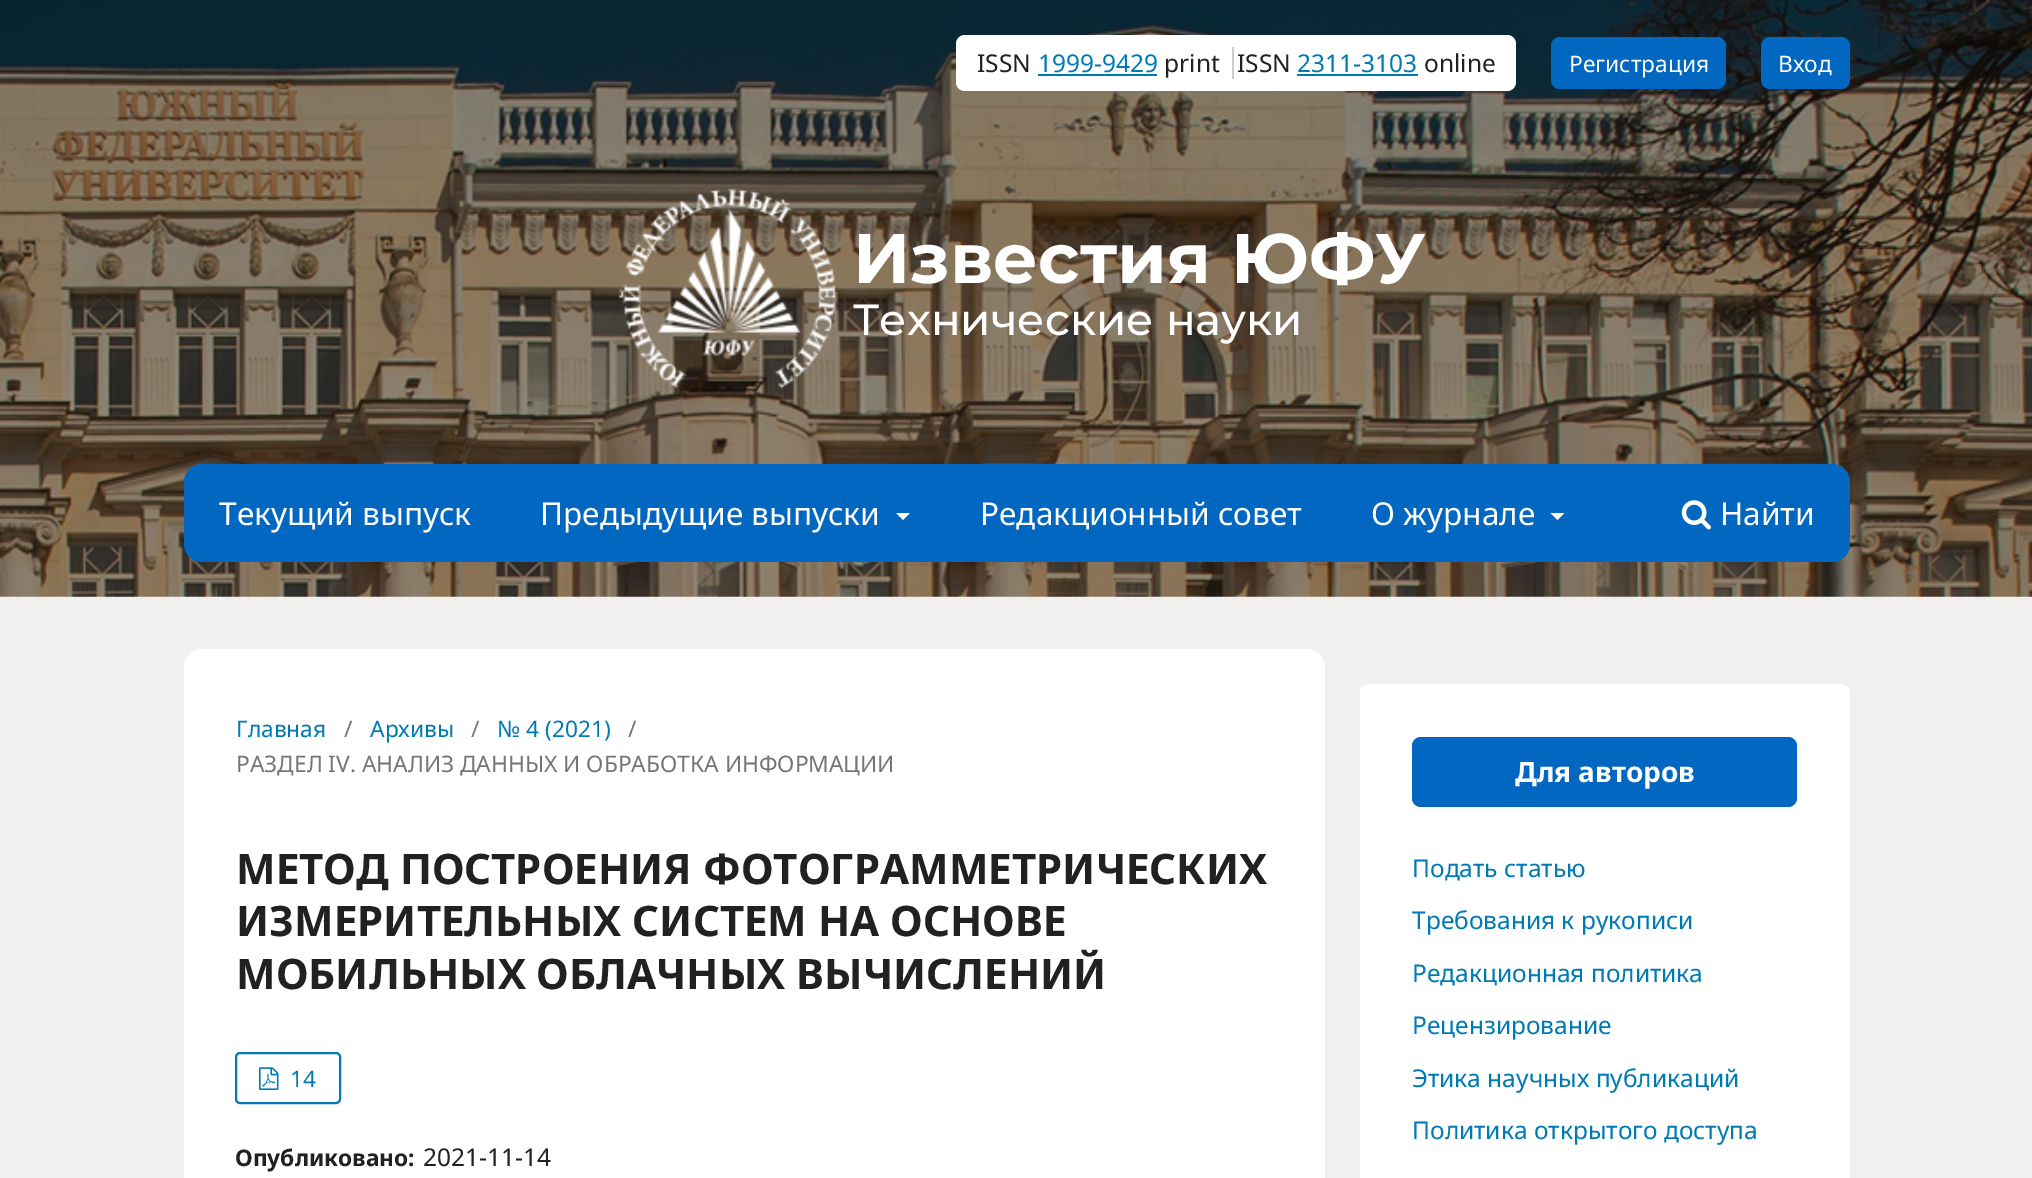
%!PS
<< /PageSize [2032 1178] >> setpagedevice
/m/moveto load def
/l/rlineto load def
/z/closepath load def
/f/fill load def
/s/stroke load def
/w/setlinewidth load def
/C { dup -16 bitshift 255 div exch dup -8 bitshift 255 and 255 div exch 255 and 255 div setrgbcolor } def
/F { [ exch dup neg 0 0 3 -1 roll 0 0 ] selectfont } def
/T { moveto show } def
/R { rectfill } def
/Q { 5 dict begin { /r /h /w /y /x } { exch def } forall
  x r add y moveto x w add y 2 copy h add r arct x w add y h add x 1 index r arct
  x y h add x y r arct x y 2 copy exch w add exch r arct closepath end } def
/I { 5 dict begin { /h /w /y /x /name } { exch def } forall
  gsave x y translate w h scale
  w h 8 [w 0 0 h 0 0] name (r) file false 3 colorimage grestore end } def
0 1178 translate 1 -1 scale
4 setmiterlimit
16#F2F0EF C
0 0 2032 1178 R
(1.rgb) 0 0 2032 597 I
16#FFFFFF C
956 35 560 56 9 Q f
/NotoSans-Regular 24.5 F
16#212121 C
(ISSN) 977 72 T
16#007AB2 C
(1999-9429) 1038 72 T
1038 74 119 2 R
16#212121 C
(print) 1164 72 T
16#CCCCCC C
1232 47 2 32 R
16#212121 C
(ISSN) 1237 72 T
16#007AB2 C
(2311-3103) 1297 72 T
1297 74 121 2 R
16#212121 C
(online) 1424 72 T
16#0267C1 C
1551 37 175 52 9 Q f
/NotoSans-Regular 22.75 F
16#FFFFFF C
(Регистрация) 1569 72 T
16#0267C1 C
1761 37 89 52 9 Q f
16#FFFFFF C
(Вход) 1778 72 T
(2.rgb) 619 188 218 201 I
/Montserrat-Bold 70 F
(Известия ЮФУ) 853 283 T
/Montserrat-Medium 43.75 F
(Технические науки) 853 335 T
16#0267C1 C
184 464 1666 98 18 Q f
/NotoSans-Regular 31.5 F
16#FFFFFF C
(Текущий выпуск) 219 525 T
(Предыдущие выпуски) 540 525 T
896 513 m 14 0 l -7 7 l z f
(Редакционный совет) 980 525 T
(О журнале) 1371 525 T
1550.5 513 m 14 0 l -7 7 l z f
(3.rgb) 1681 500 30 30 I
(Найти) 1720 525 T
184 649 1141 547 18 Q f
/NotoSans-Regular 22.75 F
16#007AB2 C
(Главная) 236 737 T
16#757575 C
(/) 344 737 T
16#007AB2 C
(Архивы) 370 737 T
16#757575 C
(/) 471 737 T
16#007AB2 C
(№ 4 \(2021\)) 497 737 T
16#757575 C
(/) 628 737 T
(РАЗДЕЛ IV. АНАЛИЗ ДАННЫХ И ОБРАБОТКА ИНФОРМАЦИИ) 236 772 T
/NotoSans-Bold 42 F
16#212121 C
(МЕТОД ПОСТРОЕНИЯ ФОТОГРАММЕТРИЧЕСКИХ) 236 884 T
(ИЗМЕРИТЕЛЬНЫХ СИСТЕМ НА ОСНОВЕ) 236 936 T
(МОБИЛЬНЫХ ОБЛАЧНЫХ ВЫЧИСЛЕНИЙ) 236 989 T
16#007AB2 C
2 w
236 1053 104 50 4 Q s
(4.rgb) 259 1067 20 23 I
/NotoSans-Regular 22.75 F
(14) 290 1087 T
/NotoSans-Bold 22.75 F
16#212121 C
(Опубликовано:) 235 1166 T
/NotoSans-Regular 24.5 F
(2021-11-14) 423 1166 T
16#FFFFFF C
1360 684 490 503 9 Q f
16#0267C1 C
1412 737 385 70 9 Q f
/NotoSans-Bold 28 F
16#FFFFFF C
(Для авторов) 1515 782 T
/NotoSans-Regular 24.5 F
16#007AB2 C
(Подать статью) 1412 877 T
(Требования к рукописи) 1412 929 T
(Редакционная политика) 1412 982 T
(Рецензирование) 1412 1034 T
(Этика научных публикаций) 1412 1087 T
(Политика открытого доступа) 1412 1139 T
showpage
